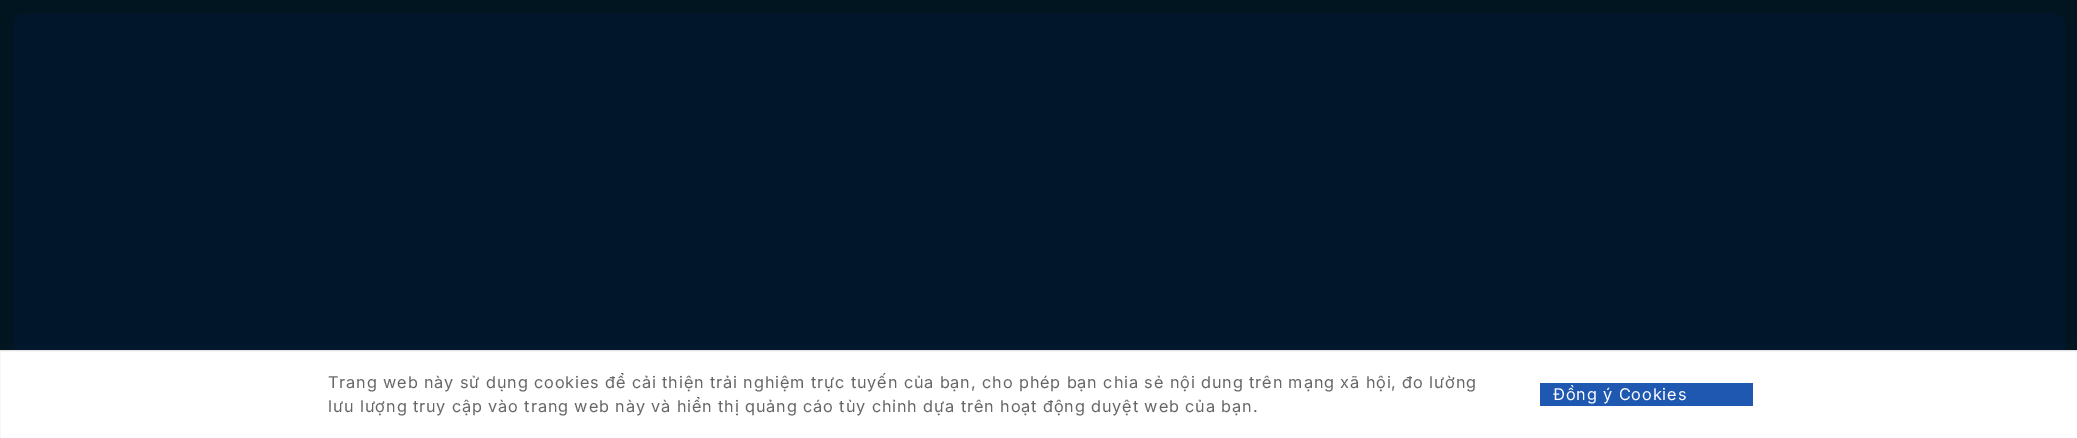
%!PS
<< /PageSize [2077 438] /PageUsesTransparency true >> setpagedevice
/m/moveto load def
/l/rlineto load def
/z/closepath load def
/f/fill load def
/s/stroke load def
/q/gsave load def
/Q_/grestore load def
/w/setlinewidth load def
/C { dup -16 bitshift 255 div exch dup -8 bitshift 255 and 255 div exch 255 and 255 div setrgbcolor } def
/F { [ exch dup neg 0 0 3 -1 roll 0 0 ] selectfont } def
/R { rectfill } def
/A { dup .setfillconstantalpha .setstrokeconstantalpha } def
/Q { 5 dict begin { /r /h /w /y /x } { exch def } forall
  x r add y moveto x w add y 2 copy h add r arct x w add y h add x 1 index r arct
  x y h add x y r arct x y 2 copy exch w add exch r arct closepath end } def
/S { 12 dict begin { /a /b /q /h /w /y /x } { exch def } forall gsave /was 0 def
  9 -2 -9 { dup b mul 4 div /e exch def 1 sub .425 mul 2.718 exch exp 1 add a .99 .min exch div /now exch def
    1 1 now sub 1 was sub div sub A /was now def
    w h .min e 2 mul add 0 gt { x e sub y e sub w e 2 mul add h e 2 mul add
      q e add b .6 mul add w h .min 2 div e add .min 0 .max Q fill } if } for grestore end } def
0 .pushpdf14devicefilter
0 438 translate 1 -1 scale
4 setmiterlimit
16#00151F C
0 0 2077 438 R
16#000000 C
3 5 2072 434 23 2.5 .6 S
16#02162B C
6.5 6.5 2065 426 18.5 Q q f Q_
16#00151F C
13 w
s
16#242F42 C
-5 358 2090 73 0 12.5 .31 S
16#FFFFFF C
-.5 350.5 m 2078 0 l 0 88 l -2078 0 l z q f Q_
16#E1E1E1 C
1 w
s
/Inter-Regular 16.25 F
16#666666 C
328 388 m .88 0 (Trang web này sử dụng cookies để cải thiện trải nghiệm trực tuyến của bạn, cho phép bạn chia sẻ nội dung trên mạng xã hội, đo lường) ashow
328 412 m .88 0 (lưu lượng truy cập vào trang web này và hiển thị quảng cáo tùy chỉnh dựa trên hoạt động duyệt web của bạn.) ashow
16#1E58B1 C
1540 383 213 23 R
16#FFFFFF C
1553 400 m .88 0 (Đồng ý Cookies) ashow
.poppdf14devicefilter showpage
